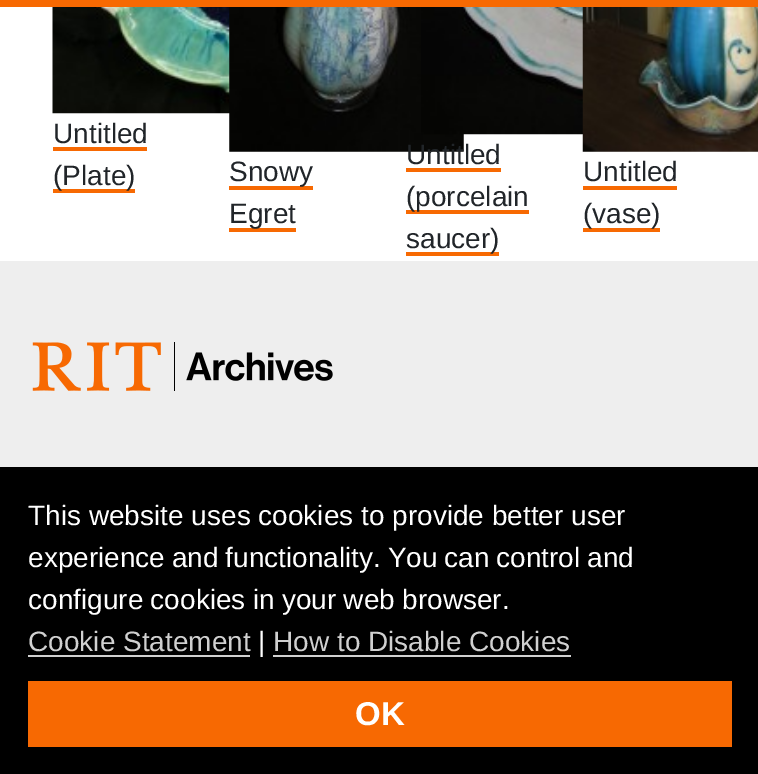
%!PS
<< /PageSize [758 774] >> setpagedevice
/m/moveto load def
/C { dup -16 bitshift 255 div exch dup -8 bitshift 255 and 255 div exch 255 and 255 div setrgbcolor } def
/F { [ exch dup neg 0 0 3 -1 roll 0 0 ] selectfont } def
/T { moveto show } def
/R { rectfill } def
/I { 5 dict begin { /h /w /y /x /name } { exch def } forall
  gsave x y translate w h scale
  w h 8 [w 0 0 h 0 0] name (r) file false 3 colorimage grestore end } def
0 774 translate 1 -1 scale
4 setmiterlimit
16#FFFFFF C
0 0 758 774 R
16#F76902 C
0 0 758 7 R
(1.rgb) 52 7 178 107 I
/LiberationSans-Regular 28 F
16#212529 C
(Untitled) 53 143 T
16#F76902 C
53 147 94 4 R
53 189 82 4 R
16#212529 C
(\(Plate\)) 53 185 T
(2.rgb) 229 7 235 145 I
16#F76902 C
229 186 84 4 R
16#212529 C
(Snowy) 229 181 T
16#F76902 C
229 228 67 4 R
16#212529 C
(Egret) 229 223 T
(3.rgb) 421 7 162 128 I
(Untitled) 406 164 T
16#F76902 C
406 168 95 4 R
406 210 123 4 R
16#212529 C
(\(porcelain) 406 206 T
16#F76902 C
406 252 93 4 R
16#212529 C
(saucer\)) 406 248 T
(4.rgb) 582 7 176 145 I
(Untitled) 583 181 T
16#F76902 C
583 186 94 4 R
583 228 77 4 R
16#212529 C
(\(vase\)) 583 223 T
16#EEEEEE C
0 261 758 206 R
(5.rgb) 32 342 301 49 I
16#000000 C
0 467 758 307 R
16#FFFFFF C
(This website uses cookies to provide better user) 28 525 T
28 567 m -1 0 32 (experience and functionality. You can control and) widthshow
28 609 m -.5 0 32 (configure cookies in your web browser.) widthshow
16#D0D0D0 C
(Cookie Statement) 28 651 T
28 655 222 2 R
16#FFFFFF C
(|) 258 651 T
16#D0D0D0 C
(How to Disable Cookies) 273 651 T
273 655 298 2 R
16#F76902 C
28 681 704 66 R
/LiberationSans-Bold 33 F
16#FFFFFF C
(OK) 355 725 T
showpage
